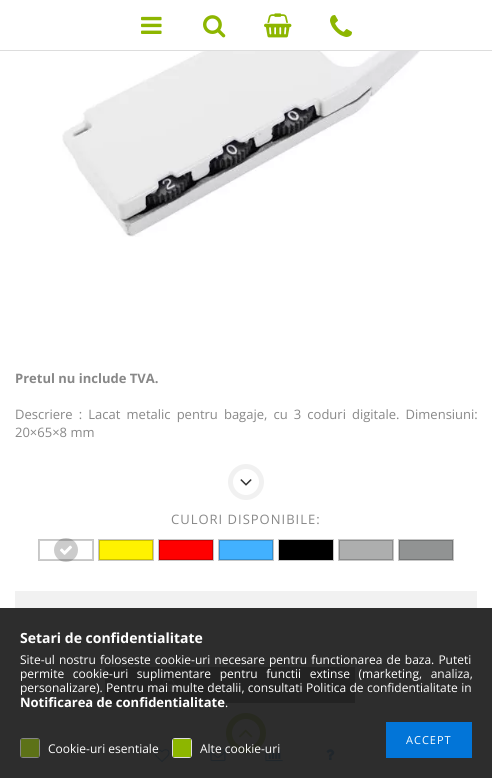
import math
import cairo

surface = cairo.ImageSurface(cairo.FORMAT_RGB24, 492, 778)
ctx = cairo.Context(surface)
options = cairo.FontOptions()
options.set_hint_metrics(cairo.HINT_METRICS_OFF)
options.set_hint_style(cairo.HINT_STYLE_NONE)
ctx.set_font_options(options)
ctx.set_miter_limit(4)


def set_color(code):
    ctx.set_source_rgb(*(v / 255 for v in bytes.fromhex(code[-6:])))


def draw_text(x, y, s, family, size, color, bold=False, italic=False):
    ctx.select_font_face(family, cairo.FONT_SLANT_ITALIC if italic else cairo.FONT_SLANT_NORMAL, cairo.FONT_WEIGHT_BOLD if bold else cairo.FONT_WEIGHT_NORMAL)
    ctx.set_font_size(size)
    set_color(color)
    ctx.move_to(x, y)
    ctx.show_text(s)


def draw_spaced(x, y, s, letter, word):
    ctx.move_to(x, y)
    for ch in s:
        ctx.show_text(ch)
        ctx.rel_move_to(letter + word * (ch == ' '), 0)


def fill_rect(x, y, w, h, color):
    set_color(color)
    ctx.rectangle(x, y, w, h)
    ctx.fill()


def rounded_rect(x, y, w, h, r):
    ctx.new_sub_path()
    for i, (u, v) in enumerate([(x + w - r, y + h - r), (x + r, y + h - r), (x + r, y + r), (x + w - r, y + r)]):
        ctx.arc(u, v, r, i * math.pi / 2, (i + 1) * math.pi / 2)
    ctx.close_path()


def draw_image(path, x, y, w, h):
    ctx.save()
    ctx.set_source_surface(cairo.ImageSurface.create_from_png(path), x, y)
    ctx.rectangle(x, y, w, h)
    ctx.fill()
    ctx.restore()


set_color("#ffffff")
ctx.paint()
fill_rect(0, 608, 492, 170, "#2d2d2d")
fill_rect(0, 50, 492, 1, "#dddddd")
draw_image("assets/img1.png", 141, 16, 21, 18)
draw_image("assets/img2.png", 203, 15, 23, 23)
draw_image("assets/img3.png", 264, 13, 28, 25)
draw_image("assets/img4.png", 330, 15, 22, 22)
draw_image("assets/img5.png", 62, 51, 367, 186)
draw_text(15, 383, "Pretul nu include TVA.", "Open Sans", 13, "#888888", bold=True)
ctx.select_font_face("Open Sans")
draw_spaced(15, 419, "Descriere : Lacat metalic pentru bagaje, cu 3 coduri digitale. Dimensiuni:", 0, 2.75)
draw_text(15, 437, "20×65×8 mm", "Open Sans", 13, "#888888")
ctx.new_path()
ctx.arc(246, 482, 15.5, 0, 2 * math.pi)
set_color("#f1f1f1")
ctx.set_line_width(5)
ctx.stroke()
draw_image("assets/img6.png", 240, 479, 12, 7)
set_color("#888888")
draw_spaced(171, 524, "CULORI DISPONIBILE:", 1, 0)
ctx.rectangle(38.5, 539.5, 55, 21)
set_color("#c7c7c7")
ctx.set_line_width(1)
ctx.stroke()
ctx.rectangle(39.5, 540.5, 53, 19)
set_color("#cccccc")
ctx.stroke()
ctx.set_source_rgba(0, 0, 0, 0.2)
ctx.arc(66, 550, 12, 0, 2 * math.pi)
ctx.fill()
draw_image("assets/img7.png", 60, 545, 12, 10)
fill_rect(100, 541, 52, 18, "#fff200")
ctx.rectangle(98.5, 539.5, 55, 21)
set_color("#c7c7c7")
ctx.stroke()
ctx.rectangle(99.5, 540.5, 53, 19)
set_color("#ccc200")
ctx.stroke()
fill_rect(160, 541, 52, 18, "#ff0000")
ctx.rectangle(158.5, 539.5, 55, 21)
set_color("#c7c7c7")
ctx.stroke()
ctx.rectangle(159.5, 540.5, 53, 19)
set_color("#cc0000")
ctx.stroke()
fill_rect(220, 541, 52, 18, "#42b1ff")
ctx.rectangle(218.5, 539.5, 55, 21)
set_color("#c7c7c7")
ctx.stroke()
ctx.rectangle(219.5, 540.5, 53, 19)
set_color("#358ecc")
ctx.stroke()
set_color("#000000")
ctx.rectangle(278.5, 539.5, 55, 21)
ctx.fill_preserve()
set_color("#c7c7c7")
ctx.stroke()
fill_rect(340, 541, 52, 18, "#adaeae")
ctx.rectangle(338.5, 539.5, 55, 21)
set_color("#c7c7c7")
ctx.stroke()
ctx.rectangle(339.5, 540.5, 53, 19)
set_color("#8a8b8b")
ctx.stroke()
fill_rect(400, 541, 52, 18, "#919393")
ctx.rectangle(398.5, 539.5, 55, 21)
set_color("#c7c7c7")
ctx.stroke()
ctx.rectangle(399.5, 540.5, 53, 19)
set_color("#747676")
ctx.stroke()
fill_rect(15, 591, 462, 17, "#f1f1f1")
draw_image("assets/img8.png", 79, 672, 11, 7)
draw_image("assets/img9.png", 79, 691, 11, 7)
fill_rect(105, 667, 250, 36, "#232323")
draw_image("assets/img10.png", 161, 678, 15, 14)
draw_image("assets/img11.png", 154, 749, 16, 13)
draw_image("assets/img12.png", 210, 749, 16, 13)
draw_image("assets/img13.png", 265, 748, 18, 14)
draw_image("assets/img14.png", 326, 749, 9, 11)
draw_text(20, 643, "Setari de confidentialitate", "Open Sans", 14, "#ffffff", bold=True)
ctx.select_font_face("Open Sans")
ctx.set_font_size(12)
draw_spaced(20, 664, "Site-ul nostru foloseste cookie-uri necesare pentru functionarea de baza. Puteti", 0, 1)
draw_spaced(20, 678, "permite cookie-uri suplimentare pentru functii extinse (marketing, analiza,", 0, 5.5)
draw_spaced(20, 692, "personalizare). Pentru mai multe detalii, consultati Politica de confidentialitate in", 0, 0.25)
draw_text(20, 707, "Notificarea de confidentialitate", "Open Sans", 13, "#ffffff", bold=True)
draw_text(225, 707, ".", "Open Sans", 12, "#ffffff")
fill_rect(386, 722, 86, 36, "#0275d8")
ctx.set_font_size(11)
set_color("#ffffff")
draw_spaced(406, 744, "ACCEPT", 1, 0)
rounded_rect(20.5, 738.5, 19, 19, 2.5)
set_color("#858585")
ctx.stroke()
fill_rect(21, 739, 18, 18, "#5d7217")
draw_text(48, 753, "Cookie-uri esentiale", "Open Sans", 12, "#ffffff")
rounded_rect(172.5, 738.5, 19, 19, 2.5)
set_color("#dddddd")
ctx.stroke()
fill_rect(173, 739, 18, 18, "#8db600")
ctx.arc(246, 733, 17, 0, 2 * math.pi)
set_color("#272920")
ctx.set_line_width(6)
ctx.stroke()
draw_text(200, 753, "Alte cookie-uri", "Open Sans", 12, "#ffffff")
draw_image("assets/img15.png", 239, 729, 14, 9)
surface.write_to_png("output.png")
